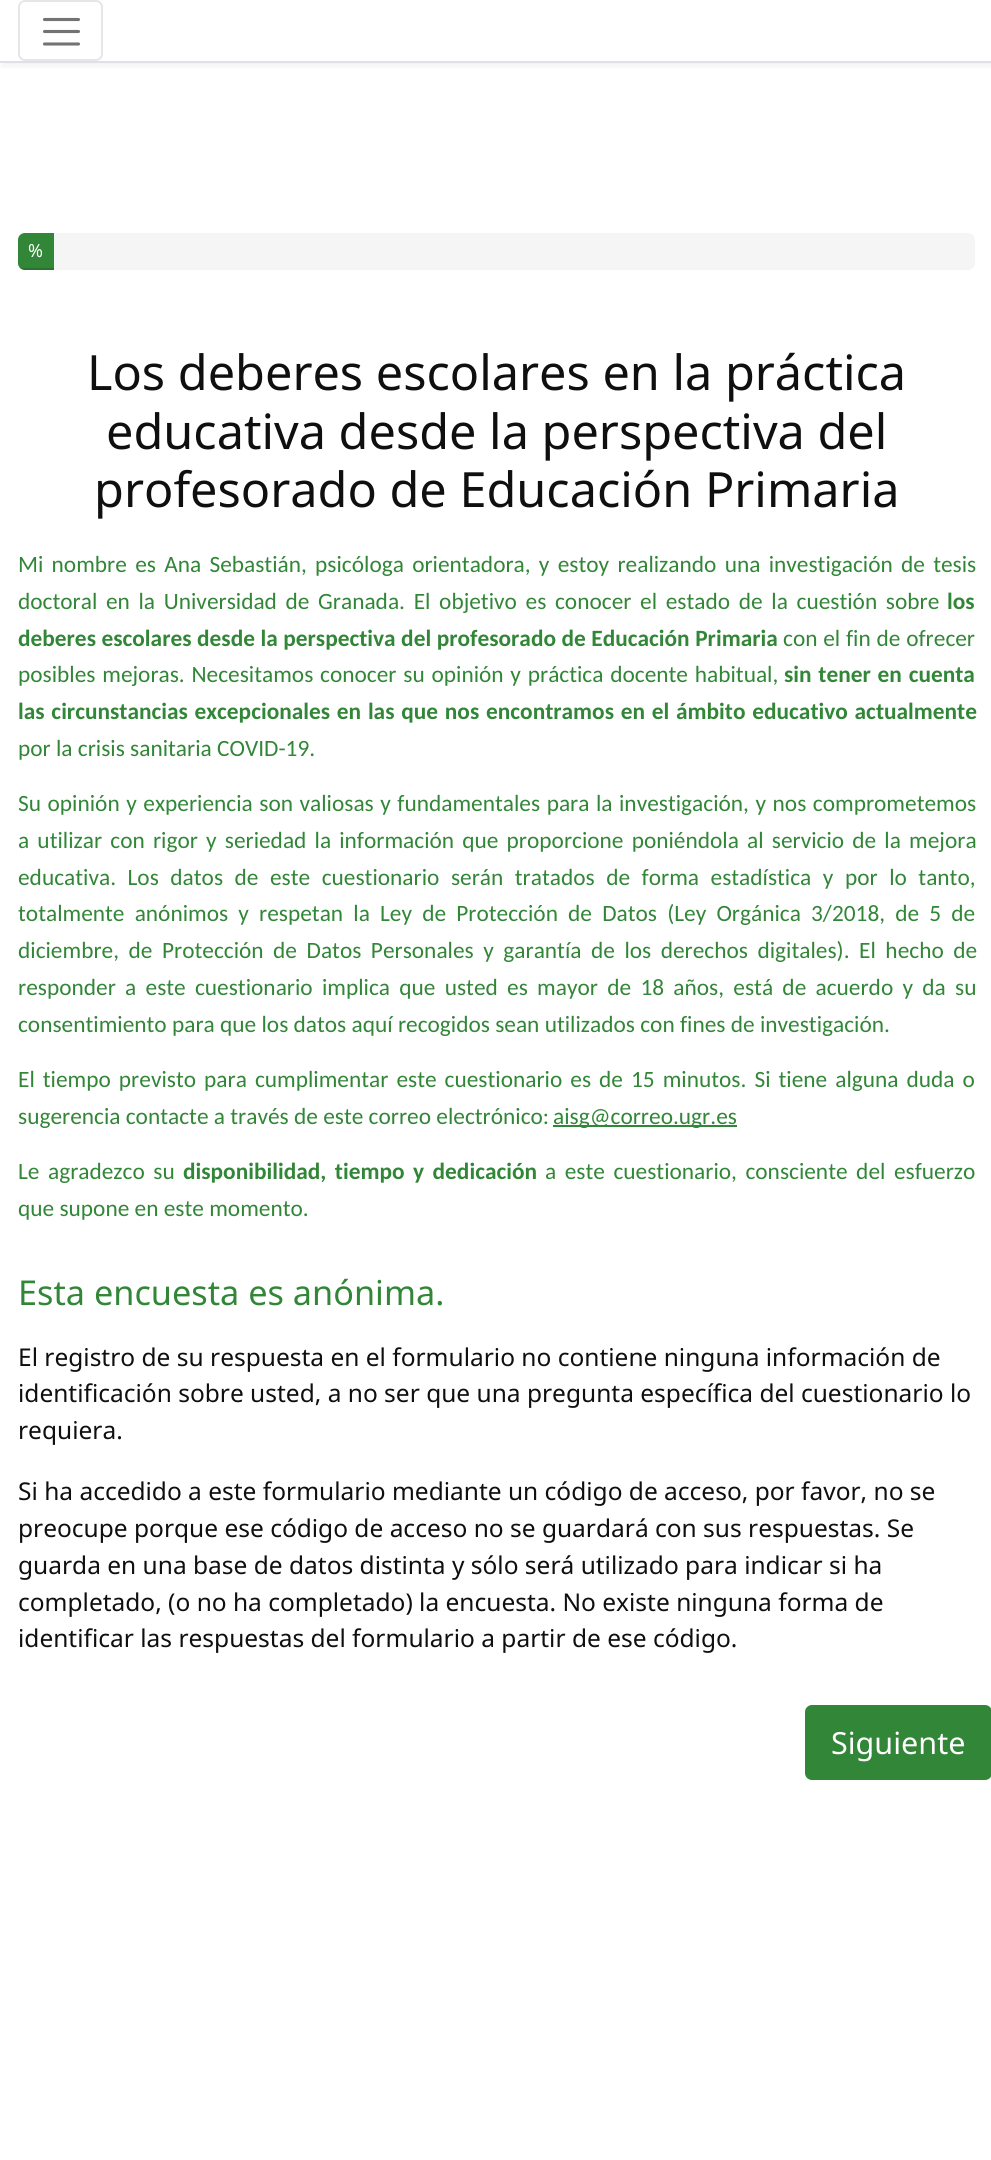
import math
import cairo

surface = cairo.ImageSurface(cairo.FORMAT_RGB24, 991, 2160)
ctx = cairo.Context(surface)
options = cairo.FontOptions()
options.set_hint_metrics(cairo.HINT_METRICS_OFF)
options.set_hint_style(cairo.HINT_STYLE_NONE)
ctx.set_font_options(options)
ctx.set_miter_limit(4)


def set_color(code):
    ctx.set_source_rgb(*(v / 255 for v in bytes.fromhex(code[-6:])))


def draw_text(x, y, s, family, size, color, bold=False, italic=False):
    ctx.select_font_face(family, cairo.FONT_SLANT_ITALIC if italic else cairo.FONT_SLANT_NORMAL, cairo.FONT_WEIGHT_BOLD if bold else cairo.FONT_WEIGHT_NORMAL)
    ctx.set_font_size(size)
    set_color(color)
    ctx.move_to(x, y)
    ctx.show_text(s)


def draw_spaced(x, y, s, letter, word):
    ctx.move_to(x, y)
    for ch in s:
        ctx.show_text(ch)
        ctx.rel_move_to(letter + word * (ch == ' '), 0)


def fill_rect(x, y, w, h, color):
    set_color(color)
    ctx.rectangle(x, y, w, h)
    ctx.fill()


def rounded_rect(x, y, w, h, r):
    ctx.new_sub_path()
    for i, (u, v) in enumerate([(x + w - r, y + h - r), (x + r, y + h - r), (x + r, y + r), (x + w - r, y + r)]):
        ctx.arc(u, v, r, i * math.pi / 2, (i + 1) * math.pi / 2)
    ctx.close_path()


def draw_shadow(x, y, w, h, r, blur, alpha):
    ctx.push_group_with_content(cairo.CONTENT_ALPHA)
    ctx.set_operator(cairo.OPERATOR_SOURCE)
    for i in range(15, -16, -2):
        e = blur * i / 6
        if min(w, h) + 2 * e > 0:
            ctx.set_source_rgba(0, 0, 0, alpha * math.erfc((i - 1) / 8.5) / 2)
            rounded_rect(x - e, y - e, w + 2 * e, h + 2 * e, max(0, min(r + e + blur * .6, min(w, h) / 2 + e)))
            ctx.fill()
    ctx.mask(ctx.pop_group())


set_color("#ffffff")
ctx.paint()
ctx.save()
ctx.rectangle(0, 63, 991, 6)
ctx.clip()
set_color("#84888b")
draw_shadow(2, 4, 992, 63, 0, 2.5, 0.1)
ctx.restore()
fill_rect(0, 61, 991, 2, "#dee2e6")
rounded_rect(19, 1, 83, 59, 6)
set_color("#e6e6e6")
ctx.stroke()
ctx.new_path()
ctx.move_to(44.5, 19.5)
ctx.line_to(78.5, 19.5)
ctx.move_to(44.5, 31.5)
ctx.line_to(78.5, 31.5)
ctx.move_to(44.5, 44)
ctx.line_to(78.5, 44)
set_color("#737373")
ctx.set_line_width(3.1)
ctx.set_line_cap(cairo.LINE_CAP_ROUND)
ctx.stroke()
set_color("#f5f5f5")
rounded_rect(18, 233, 957, 37, 7)
ctx.fill()
set_color("#328637")
ctx.new_path()
ctx.move_to(25, 233)
ctx.line_to(54, 233)
ctx.line_to(54, 270)
ctx.line_to(25, 270)
ctx.curve_to(21, 270, 18, 267, 18, 263)
ctx.line_to(18, 240)
ctx.curve_to(18, 236, 21, 233, 25, 233)
ctx.close_path()
ctx.fill()
ctx.save()
rounded_rect(18, 233, 957, 37, 7)
ctx.clip()
ctx.set_source_rgba(0, 0, 0, 0.15)
ctx.rectangle(18, 268, 36, 2)
ctx.fill()
ctx.restore()
draw_text(28, 257, "%", "Noto Sans", 18, "#ffffff")
draw_text(87, 390, "Los deberes escolares en la práctica", "Noto Sans", 48.6, "#100f0f")
draw_text(106, 449, "educativa desde la perspectiva del", "Noto Sans", 48.6, "#100f0f")
draw_text(94, 507, "profesorado de Educación Primaria", "Noto Sans", 48.6, "#100f0f")
ctx.select_font_face("Carlito")
ctx.set_font_size(23.35)
set_color("#328637")
draw_spaced(18, 572, "Mi nombre es Ana Sebastián, psicóloga orientadora, y estoy realizando una investigación de tesis", 0, 3)
draw_spaced(18, 609, "doctoral en la Universidad de Granada. El objetivo es conocer el estado de la cuestión sobre", 0, 3.4)
draw_text(947, 609, "los", "Carlito", 23.35, "#328637", bold=True)
draw_spaced(18, 646, "deberes escolares desde la perspectiva del profesorado de Educación Primaria", 0, 0.25)
ctx.select_font_face("Carlito")
draw_spaced(783, 646, "con el fin de ofrecer", 0, 0.5)
draw_spaced(18, 682, "posibles mejoras. Necesitamos conocer su opinión y práctica docente habitual,", 0, 1.5)
ctx.select_font_face("Carlito", cairo.FONT_SLANT_NORMAL, cairo.FONT_WEIGHT_BOLD)
draw_spaced(784, 682, "sin tener en cuenta", 0, 1.5)
draw_spaced(18, 719, "las circunstancias excepcionales en las que nos encontramos en el ámbito educativo actualmente", 0, 1.5)
draw_text(18, 756, "por la crisis sanitaria COVID-19.", "Carlito", 23.35, "#328637")
draw_spaced(18, 811, "Su opinión y experiencia son valiosas y fundamentales para la investigación, y nos comprometemos", 0, 1.25)
draw_spaced(18, 848, "a utilizar con rigor y seriedad la información que proporcione poniéndola al servicio de la mejora", 0, 2.9)
draw_spaced(18, 885, "educativa. Los datos de este cuestionario serán tratados de forma estadística y por lo tanto,", 0, 6.25)
draw_spaced(18, 921, "totalmente anónimos y respetan la Ley de Protección de Datos (Ley Orgánica 3/2018, de 5 de", 0, 4.9)
draw_spaced(18, 958, "diciembre, de Protección de Datos Personales y garantía de los derechos digitales). El hecho de", 0, 4.25)
draw_spaced(18, 995, "responder a este cuestionario implica que usted es mayor de 18 años, está de acuerdo y da su", 0, 4)
draw_text(18, 1032, "consentimiento para que los datos aquí recogidos sean utilizados con fines de investigación.", "Carlito", 23.35, "#328637")
draw_spaced(18, 1087, "El tiempo previsto para cumplimentar este cuestionario es de 15 minutos. Si tiene alguna duda o", 0, 2.75)
draw_text(18, 1124, "sugerencia contacte a través de este correo electrónico:", "Carlito", 23.35, "#328637")
fill_rect(553, 1125, 184, 2, "#328637")
draw_text(553, 1124, "aisg@correo.ugr.es", "Carlito", 23.35, "#328637")
draw_spaced(18, 1179, "Le agradezco su", 0, 3.25)
ctx.select_font_face("Carlito", cairo.FONT_SLANT_NORMAL, cairo.FONT_WEIGHT_BOLD)
draw_spaced(183, 1179, "disponibilidad, tiempo y dedicación", 0, 3.25)
ctx.select_font_face("Carlito")
draw_spaced(545, 1179, "a este cuestionario, consciente del esfuerzo", 0, 3.25)
draw_text(18, 1216, "que supone en este momento.", "Carlito", 23.35, "#328637")
draw_text(18, 1305, "Esta encuesta es anónima.", "Noto Sans", 34.25, "#328637")
draw_text(18, 1366, "El registro de su respuesta en el formulario no contiene ninguna información de", "Noto Sans", 24.5, "#100f0f")
draw_text(18, 1402, "identificación sobre usted, a no ser que una pregunta específica del cuestionario lo", "Noto Sans", 24.5, "#100f0f")
draw_text(18, 1439, "requiera.", "Noto Sans", 24.5, "#100f0f")
draw_text(18, 1500, "Si ha accedido a este formulario mediante un código de acceso, por favor, no se", "Noto Sans", 24.5, "#100f0f")
draw_text(18, 1537, "preocupe porque ese código de acceso no se guardará con sus respuestas. Se", "Noto Sans", 24.5, "#100f0f")
draw_text(18, 1574, "guarda en una base de datos distinta y sólo será utilizado para indicar si ha", "Noto Sans", 24.5, "#100f0f")
draw_text(18, 1611, "completado, (o no ha completado) la encuesta. No existe ninguna forma de", "Noto Sans", 24.5, "#100f0f")
draw_text(18, 1647, "identificar las respuestas del formulario a partir de ese código.", "Noto Sans", 24.5, "#100f0f")
set_color("#328637")
rounded_rect(806, 1706, 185, 73, 6)
ctx.fill_preserve()
ctx.set_line_width(2)
ctx.set_line_cap(cairo.LINE_CAP_BUTT)
ctx.stroke()
draw_text(831, 1754, "Siguiente", "Noto Sans", 30.5, "#ffffff")
surface.write_to_png("output.png")
